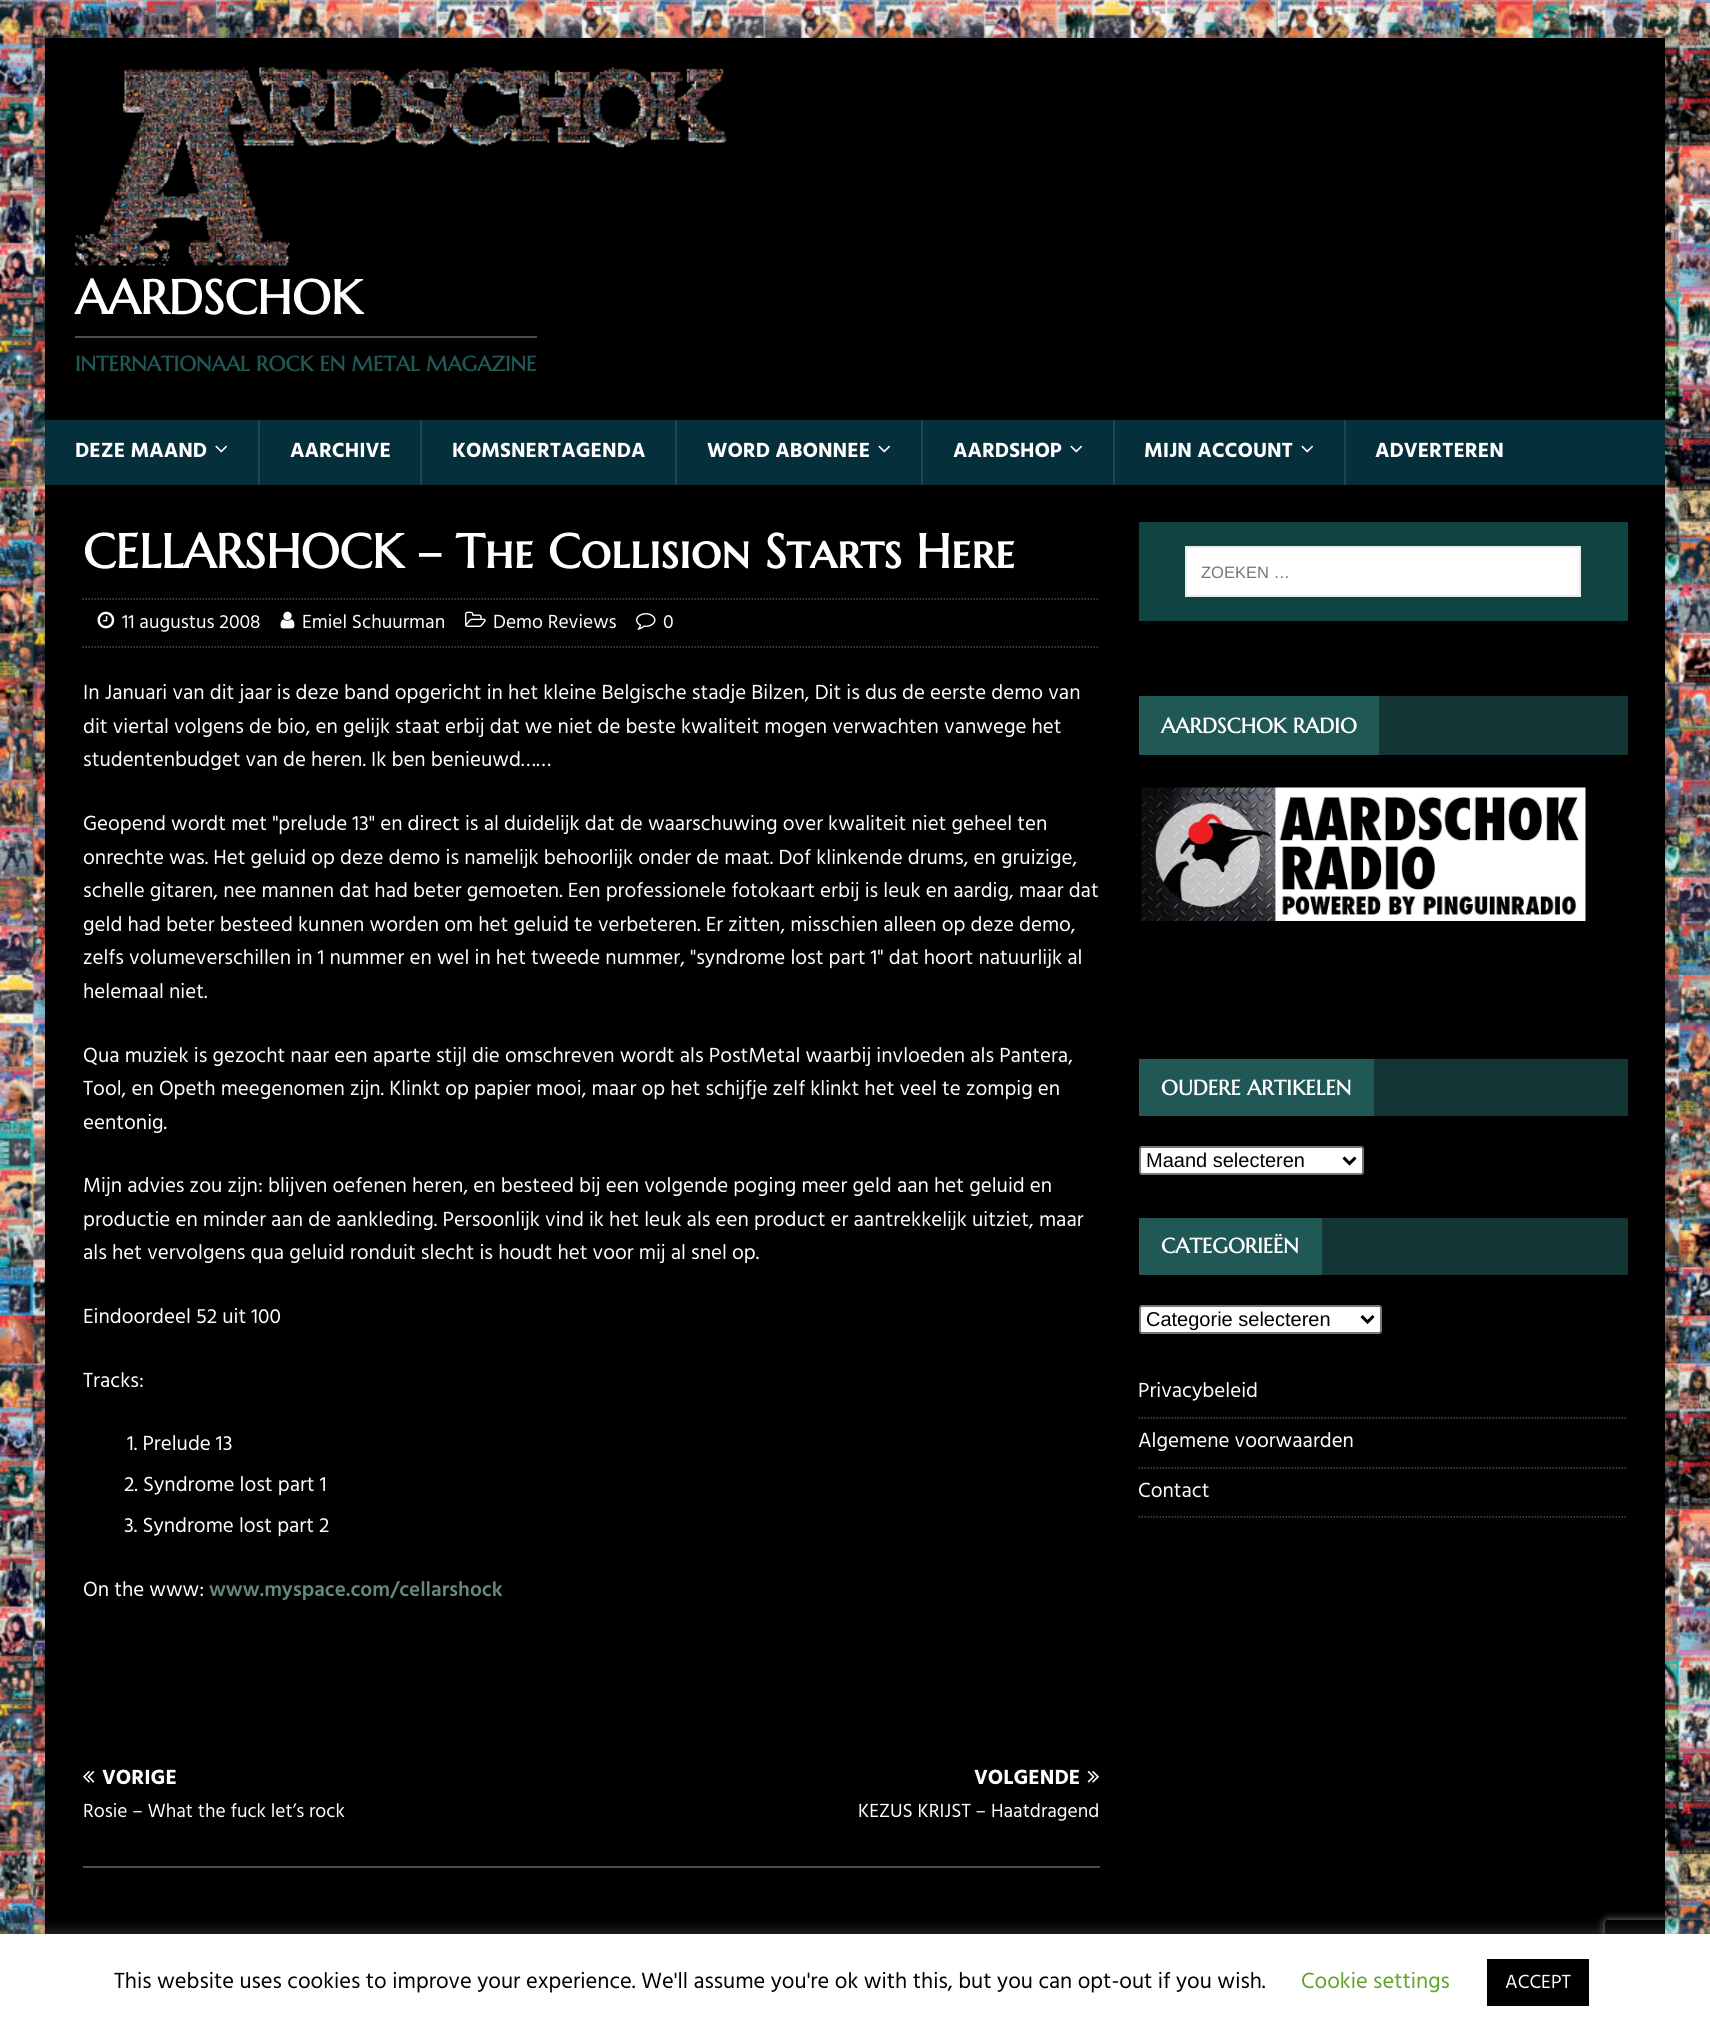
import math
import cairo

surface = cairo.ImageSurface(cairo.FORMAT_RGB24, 1710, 2031)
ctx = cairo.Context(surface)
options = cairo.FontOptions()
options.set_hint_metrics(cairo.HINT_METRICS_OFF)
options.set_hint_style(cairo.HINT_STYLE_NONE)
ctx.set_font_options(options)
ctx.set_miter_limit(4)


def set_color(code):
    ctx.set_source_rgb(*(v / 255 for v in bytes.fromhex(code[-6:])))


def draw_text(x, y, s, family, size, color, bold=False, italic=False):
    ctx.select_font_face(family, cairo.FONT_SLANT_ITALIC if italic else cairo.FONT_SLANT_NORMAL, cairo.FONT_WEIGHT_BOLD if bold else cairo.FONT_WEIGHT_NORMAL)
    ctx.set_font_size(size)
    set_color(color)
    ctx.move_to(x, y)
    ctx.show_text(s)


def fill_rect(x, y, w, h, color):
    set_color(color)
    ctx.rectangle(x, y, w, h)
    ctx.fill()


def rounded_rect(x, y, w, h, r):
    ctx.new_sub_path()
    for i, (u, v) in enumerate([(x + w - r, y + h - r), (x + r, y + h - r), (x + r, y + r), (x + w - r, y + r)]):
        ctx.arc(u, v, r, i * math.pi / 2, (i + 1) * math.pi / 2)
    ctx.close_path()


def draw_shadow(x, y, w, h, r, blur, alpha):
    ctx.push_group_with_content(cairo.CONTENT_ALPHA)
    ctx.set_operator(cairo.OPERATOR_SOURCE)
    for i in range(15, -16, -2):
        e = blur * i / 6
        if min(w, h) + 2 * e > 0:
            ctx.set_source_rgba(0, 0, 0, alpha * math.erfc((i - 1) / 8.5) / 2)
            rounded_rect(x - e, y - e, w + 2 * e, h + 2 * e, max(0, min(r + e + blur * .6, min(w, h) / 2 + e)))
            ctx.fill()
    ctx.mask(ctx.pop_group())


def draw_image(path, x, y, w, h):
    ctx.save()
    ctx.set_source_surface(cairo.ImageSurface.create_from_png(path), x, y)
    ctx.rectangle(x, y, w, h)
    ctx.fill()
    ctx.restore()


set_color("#ffffff")
ctx.paint()
draw_image("assets/img1.png", 0, 0, 1710, 1934)
set_color("#323232")
draw_shadow(45, 38, 1620, 1968, 0, 7.5, 0.17)
fill_rect(45, 38, 1620, 382, "#000000")
draw_image("assets/img2.png", 75, 67, 652, 199)
draw_text(75, 314, "AARDSCHOK", "Marcellus SC", 48, "#ffffff", bold=True)
fill_rect(75, 336, 462, 2, "#4d4d4d")
draw_text(75, 371, "INTERNATIONAAL ROCK EN METAL MAGAZINE", "Marcellus SC", 21, "#205855", bold=True)
fill_rect(45, 420, 1620, 65, "#052f3b")
draw_text(75, 457, "DEZE MAAND", "Hind", 21, "#ffffff", bold=True)
draw_image("assets/img3.png", 215, 445, 13, 8)
fill_rect(258, 420, 2, 65, "#1e444f")
draw_text(290, 457, "AARCHIVE", "Hind", 21, "#ffffff", bold=True)
fill_rect(420, 420, 2, 65, "#1e444f")
draw_text(452, 457, "KOMSNERTAGENDA", "Hind", 21, "#ffffff", bold=True)
fill_rect(675, 420, 2, 65, "#1e444f")
draw_text(707, 457, "WORD ABONNEE", "Hind", 21, "#ffffff", bold=True)
draw_image("assets/img3.png", 878, 445, 13, 8)
fill_rect(921, 420, 2, 65, "#1e444f")
draw_text(953, 457, "AARDSHOP", "Hind", 21, "#ffffff", bold=True)
draw_image("assets/img3.png", 1070, 445, 13, 8)
fill_rect(1113, 420, 2, 65, "#1e444f")
draw_text(1144, 457, "MIJN ACCOUNT", "Hind", 21, "#ffffff", bold=True)
draw_image("assets/img3.png", 1301, 445, 13, 8)
fill_rect(1344, 420, 2, 65, "#1e444f")
draw_text(1375, 457, "ADVERTEREN", "Hind", 21, "#ffffff", bold=True)
fill_rect(45, 485, 1620, 1449, "#000000")
draw_text(83, 568, "CELLARSHOCK – The Collision Starts Here", "Marcellus SC", 48, "#ffffff", bold=True)
ctx.new_path()
ctx.move_to(82.5, 599)
ctx.line_to(1099.5, 599)
set_color("#4d4d4d")
ctx.set_line_width(1.5)
ctx.set_dash([1.5, 1.5])
ctx.stroke()
ctx.new_path()
ctx.move_to(82.5, 647)
ctx.line_to(1099.5, 647)
ctx.stroke()
draw_image("assets/img4.png", 97, 611, 18, 18)
draw_text(122, 628, "11 augustus 2008", "Hind", 19.5, "#ffffff")
draw_image("assets/img5.png", 280, 611, 15, 18)
draw_text(302, 628, "Emiel Schuurman", "Hind", 19.5, "#ffffff")
draw_image("assets/img6.png", 465, 611, 21, 16)
draw_text(493, 628, "Demo Reviews", "Hind", 19.5, "#ffffff")
draw_image("assets/img7.png", 636, 613, 20, 17)
draw_text(663, 628, "0", "Hind", 19.5, "#ffffff")
draw_text(83, 699, "In Januari van dit jaar is deze band opgericht in het kleine Belgische stadje Bilzen, Dit is dus de eerste demo van", "Hind", 21, "#ffffff")
draw_text(83, 733, "dit viertal volgens de bio, en gelijk staat erbij dat we niet de beste kwaliteit mogen verwachten vanwege het", "Hind", 21, "#ffffff")
draw_text(83, 766, "studentenbudget van de heren. Ik ben benieuwd……", "Hind", 21, "#ffffff")
draw_text(83, 830, "Geopend wordt met \"prelude 13\" en direct is al duidelijk dat de waarschuwing over kwaliteit niet geheel ten", "Hind", 21, "#ffffff")
draw_text(83, 864, "onrechte was. Het geluid op deze demo is namelijk behoorlijk onder de maat. Dof klinkende drums, en gruizige,", "Hind", 21, "#ffffff")
draw_text(83, 897, "schelle gitaren, nee mannen dat had beter gemoeten. Een professionele fotokaart erbij is leuk en aardig, maar dat", "Hind", 21, "#ffffff")
draw_text(83, 931, "geld had beter besteed kunnen worden om het geluid te verbeteren. Er zitten, misschien alleen op deze demo,", "Hind", 21, "#ffffff")
draw_text(83, 964, "zelfs volumeverschillen in 1 nummer en wel in het tweede nummer, \"syndrome lost part 1\" dat hoort natuurlijk al", "Hind", 21, "#ffffff")
draw_text(83, 998, "helemaal niet.", "Hind", 21, "#ffffff")
draw_text(83, 1062, "Qua muziek is gezocht naar een aparte stijl die omschreven wordt als PostMetal waarbij invloeden als Pantera,", "Hind", 21, "#ffffff")
draw_text(83, 1095, "Tool, en Opeth meegenomen zijn. Klinkt op papier mooi, maar op het schijfje zelf klinkt het veel te zompig en", "Hind", 21, "#ffffff")
draw_text(83, 1129, "eentonig.", "Hind", 21, "#ffffff")
draw_text(83, 1192, "Mijn advies zou zijn: blijven oefenen heren, en besteed bij een volgende poging meer geld aan het geluid en", "Hind", 21, "#ffffff")
draw_text(83, 1226, "productie en minder aan de aankleding. Persoonlijk vind ik het leuk als een product er aantrekkelijk uitziet, maar", "Hind", 21, "#ffffff")
draw_text(83, 1259, "als het vervolgens qua geluid ronduit slecht is houdt het voor mij al snel op.", "Hind", 21, "#ffffff")
draw_text(83, 1323, "Eindoordeel 52 uit 100", "Hind", 21, "#ffffff")
draw_text(83, 1387, "Tracks:", "Hind", 21, "#ffffff")
draw_text(127, 1450, "1. Prelude 13", "Hind", 21, "#ffffff")
draw_text(124, 1491, "2. Syndrome lost part 1", "Hind", 21, "#ffffff")
draw_text(124, 1532, "3. Syndrome lost part 2", "Hind", 21, "#ffffff")
draw_text(83, 1596, "On the www:", "Hind", 21, "#ffffff")
draw_text(209, 1596, "www.myspace.com/cellarshock", "Hind SemiBold", 21, "#658a78")
fill_rect(83, 1866, 1017, 2, "#4d4d4d")
draw_image("assets/img8.png", 83, 1771, 12, 12)
draw_text(102, 1784, "VORIGE", "Hind", 21, "#ffffff", bold=True)
draw_text(83, 1817, "Rosie – What the fuck let’s rock", "Hind", 19.5, "#ffffff")
draw_text(974, 1784, "VOLGENDE", "Hind", 21, "#ffffff", bold=True)
draw_image("assets/img9.png", 1087, 1771, 12, 12)
draw_text(858, 1817, "KEZUS KRIJST – Haatdragend", "Hind", 19.5, "#ffffff")
fill_rect(1139, 522, 489, 99, "#104442")
set_color("#ffffff")
ctx.rectangle(1186, 547, 394, 49)
ctx.fill_preserve()
set_color("#ebebeb")
ctx.set_line_width(2)
ctx.set_dash([])
ctx.stroke()
draw_text(1201, 578, "ZOEKEN …", "Liberation Sans", 16.5, "#757575")
fill_rect(1379, 696, 249, 59, "#133533")
fill_rect(1139, 696, 240, 59, "#205855")
draw_text(1161, 733, "AARDSCHOK RADIO", "Marcellus SC", 21, "#ffffff", bold=True)
draw_image("assets/img10.png", 1141, 787, 445, 134)
fill_rect(1374, 1059, 254, 57, "#133533")
fill_rect(1139, 1059, 235, 57, "#205855")
draw_text(1161, 1095, "OUDERE ARTIKELEN", "Marcellus SC", 21, "#ffffff", bold=True)
rounded_rect(1140, 1147, 223, 27, 2)
ctx.fill_preserve()
set_color("#767676")
ctx.stroke()
ctx.new_path()
ctx.move_to(1343.5, 1157.5)
ctx.line_to(1349.5, 1163.5)
ctx.line_to(1355.5, 1157.5)
set_color("#000000")
ctx.set_line_width(3)
ctx.stroke()
draw_text(1146, 1167, "Maand selecteren", "Liberation Sans", 20, "#000000")
fill_rect(1322, 1218, 306, 57, "#133533")
fill_rect(1139, 1218, 183, 57, "#205855")
draw_text(1161, 1253, "CATEGORIEËN", "Marcellus SC", 21, "#ffffff", bold=True)
rounded_rect(1140, 1306, 241, 27, 2)
ctx.fill_preserve()
set_color("#767676")
ctx.set_line_width(2)
ctx.stroke()
ctx.new_path()
ctx.move_to(1361.5, 1316)
ctx.line_to(1367.5, 1322)
ctx.line_to(1373.5, 1316)
set_color("#000000")
ctx.set_line_width(3)
ctx.stroke()
draw_text(1146, 1326, "Categorie selecteren", "Liberation Sans", 20, "#000000")
ctx.new_path()
ctx.move_to(1138.5, 1418)
ctx.line_to(1627.5, 1418)
set_color("#4d4d4d")
ctx.set_line_width(1.5)
ctx.set_dash([1.5, 1.5])
ctx.stroke()
draw_text(1138, 1397, "Privacybeleid", "Hind", 21, "#ffffff")
ctx.new_path()
ctx.move_to(1138.5, 1468)
ctx.line_to(1627.5, 1468)
set_color("#4d4d4d")
ctx.stroke()
draw_text(1138, 1447, "Algemene voorwaarden", "Hind", 21, "#ffffff")
ctx.new_path()
ctx.move_to(1138.5, 1517)
ctx.line_to(1627.5, 1517)
set_color("#4d4d4d")
ctx.stroke()
draw_text(1138, 1497, "Contact", "Hind", 21, "#ffffff")
set_color("#acabab")
draw_shadow(0, 1932, 1710, 98, 0, 7.5, 0.3)
ctx.save()
ctx.set_fill_rule(cairo.FILL_RULE_EVEN_ODD)
ctx.new_path()
ctx.move_to(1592, 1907)
ctx.line_to(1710, 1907)
ctx.line_to(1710, 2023)
ctx.line_to(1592, 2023)
ctx.close_path()
ctx.move_to(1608, 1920)
ctx.line_to(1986, 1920)
ctx.curve_to(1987.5, 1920, 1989, 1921.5, 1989, 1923)
ctx.line_to(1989, 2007)
ctx.curve_to(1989, 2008.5, 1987.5, 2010, 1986, 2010)
ctx.line_to(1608, 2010)
ctx.curve_to(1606.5, 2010, 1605, 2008.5, 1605, 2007)
ctx.line_to(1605, 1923)
ctx.curve_to(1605, 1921.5, 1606.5, 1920, 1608, 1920)
ctx.close_path()
ctx.clip()
set_color("#808080")
draw_shadow(1605, 1920, 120, 90, 3, 4, 1)
ctx.restore()
fill_rect(0, 1934, 1710, 97, "#ffffff")
draw_text(114, 1988, "This website uses cookies to improve your experience. We'll assume you're ok with this, but you can opt-out if you wish.", "Hind", 22.5, "#000000")
draw_text(1301, 1988, "Cookie settings", "Hind", 22.5, "#62a329")
fill_rect(1487, 1959, 102, 47, "#000000")
draw_text(1505, 1988, "ACCEPT", "Hind", 19.5, "#ffffff")
surface.write_to_png("output.png")
